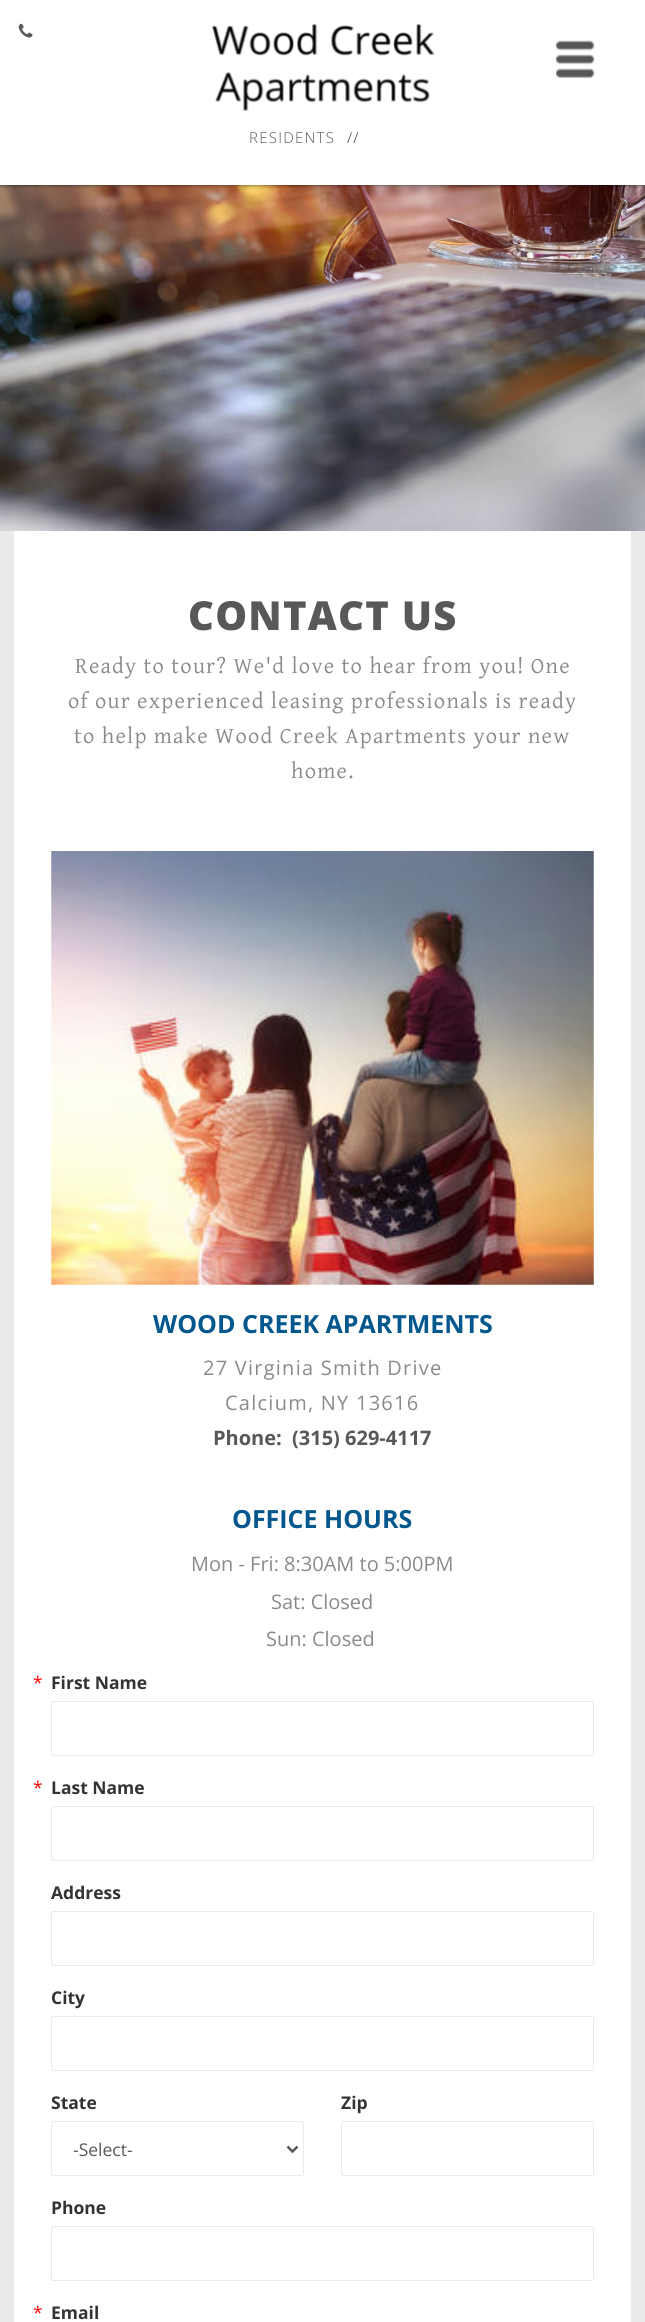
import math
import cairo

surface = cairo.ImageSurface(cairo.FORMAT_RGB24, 645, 2322)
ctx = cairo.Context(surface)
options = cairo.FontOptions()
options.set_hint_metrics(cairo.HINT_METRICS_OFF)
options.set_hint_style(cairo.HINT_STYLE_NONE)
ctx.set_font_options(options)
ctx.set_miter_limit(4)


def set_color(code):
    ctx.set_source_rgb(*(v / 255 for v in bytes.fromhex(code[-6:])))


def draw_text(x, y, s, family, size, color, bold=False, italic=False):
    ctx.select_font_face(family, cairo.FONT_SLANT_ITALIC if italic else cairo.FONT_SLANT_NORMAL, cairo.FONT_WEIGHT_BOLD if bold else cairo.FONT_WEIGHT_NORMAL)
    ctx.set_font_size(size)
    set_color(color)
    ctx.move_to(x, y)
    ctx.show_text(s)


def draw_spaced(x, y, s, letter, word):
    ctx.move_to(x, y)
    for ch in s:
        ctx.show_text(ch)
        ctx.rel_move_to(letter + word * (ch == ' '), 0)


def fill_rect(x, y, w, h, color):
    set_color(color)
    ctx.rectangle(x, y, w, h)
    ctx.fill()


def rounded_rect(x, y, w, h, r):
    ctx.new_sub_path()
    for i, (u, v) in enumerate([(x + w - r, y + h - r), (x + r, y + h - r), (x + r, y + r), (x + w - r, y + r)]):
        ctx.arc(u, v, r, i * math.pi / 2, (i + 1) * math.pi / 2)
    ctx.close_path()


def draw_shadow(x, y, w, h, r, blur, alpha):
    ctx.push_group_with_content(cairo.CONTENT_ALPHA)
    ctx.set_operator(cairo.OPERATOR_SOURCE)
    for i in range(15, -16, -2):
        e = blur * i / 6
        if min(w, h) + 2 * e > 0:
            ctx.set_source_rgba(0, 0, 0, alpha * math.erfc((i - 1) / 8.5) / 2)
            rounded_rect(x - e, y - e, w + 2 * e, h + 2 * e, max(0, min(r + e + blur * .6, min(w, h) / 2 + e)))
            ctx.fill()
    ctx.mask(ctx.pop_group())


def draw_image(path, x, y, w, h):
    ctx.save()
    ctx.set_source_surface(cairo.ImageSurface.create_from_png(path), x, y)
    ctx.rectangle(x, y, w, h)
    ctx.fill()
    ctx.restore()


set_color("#eaeaea")
ctx.paint()
draw_image("assets/img4.png", 0, 185, 645, 346)
set_color("#000000")
draw_shadow(1, -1, 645, 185, 0, 2.5, 1)
fill_rect(0, 0, 645, 185, "#ffffff")
draw_image("assets/img1.png", 18, 23, 15, 15)
draw_image("assets/img2.png", 212, 23, 223, 89)
draw_image("assets/img3.png", 556, 40, 39, 38)
ctx.select_font_face("Open Sans Light")
ctx.set_font_size(15)
set_color("#585858")
draw_spaced(249, 143, "RESIDENTS", 1.25, 0)
set_color("#333333")
draw_spaced(347, 143, "//", 1.25, 0)
fill_rect(14, 531, 617, 1791, "#ffffff")
ctx.select_font_face("Open Sans ExtraBold")
ctx.set_font_size(40)
set_color("#585858")
draw_spaced(188, 630, "CONTACT US", 1.25, 0)
ctx.select_font_face("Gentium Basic")
ctx.set_font_size(22.5)
set_color("#8b8a8b")
draw_spaced(75, 673, "Ready to tour? We'd love to hear from you! One", 1.25, 0)
draw_spaced(68, 708, "of our experienced leasing professionals is ready", 1.25, 0)
draw_spaced(74, 743, "to help make Wood Creek Apartments your new", 1.25, 0)
draw_spaced(291, 778, "home.", 1.25, 0)
draw_image("assets/img5.png", 51, 851, 543, 434)
draw_text(153, 1333, "WOOD CREEK APARTMENTS", "Open Sans", 25, "#02588d", bold=True)
ctx.select_font_face("Open Sans")
ctx.set_font_size(20)
set_color("#8b8a8b")
draw_spaced(203, 1375, "27 Virginia Smith Drive", 1.25, 0)
draw_spaced(225, 1410, "Calcium, NY 13616", 1.25, 0)
draw_text(213, 1445, "Phone:", "Open Sans", 20, "#585858", bold=True)
draw_text(292, 1445, "(315) 629-4117", "Open Sans", 20, "#585858", bold=True)
draw_text(232, 1528, "OFFICE HOURS", "Open Sans", 25, "#02588d", bold=True)
draw_text(191, 1571, "Mon - Fri: 8:30AM to 5:00PM", "Open Sans", 20, "#8b8a8b")
draw_text(271, 1609, "Sat: Closed", "Open Sans", 20, "#8b8a8b")
draw_text(266, 1646, "Sun: Closed", "Open Sans", 20, "#8b8a8b")
draw_text(33, 1689, "*", "Open Sans", 17.5, "#ff0000")
draw_text(51, 1689, "First Name", "Open Sans", 17.5, "#333333", bold=True)
rounded_rect(51.5, 1701.5, 542, 54, 2)
set_color("#ebe9e9")
ctx.set_line_width(1)
ctx.stroke()
draw_text(33, 1794, "*", "Open Sans", 17.5, "#ff0000")
draw_text(51, 1794, "Last Name", "Open Sans", 17.5, "#333333", bold=True)
rounded_rect(51.5, 1806.5, 542, 54, 2)
set_color("#ebe9e9")
ctx.stroke()
draw_text(51, 1899, "Address", "Open Sans", 17.5, "#333333", bold=True)
rounded_rect(51.5, 1911.5, 542, 54, 2)
set_color("#ebe9e9")
ctx.stroke()
draw_text(51, 2004, "City", "Open Sans", 17.5, "#333333", bold=True)
rounded_rect(51.5, 2016.5, 542, 54, 2)
set_color("#ebe9e9")
ctx.stroke()
draw_text(51, 2109, "State", "Open Sans", 17.5, "#333333", bold=True)
rounded_rect(51.5, 2121.5, 252, 54, 2)
set_color("#ebe9e9")
ctx.stroke()
ctx.new_path()
ctx.move_to(287.5, 2146.5)
ctx.line_to(292.5, 2151.5)
ctx.line_to(297.5, 2146.5)
set_color("#555555")
ctx.set_line_width(2.5)
ctx.stroke()
draw_text(73, 2156, "-Select-", "Open Sans", 17.5, "#585858")
draw_text(341, 2109, "Zip", "Open Sans", 17.5, "#333333", bold=True)
rounded_rect(341.5, 2121.5, 252, 54, 2)
set_color("#ebe9e9")
ctx.set_line_width(1)
ctx.stroke()
draw_text(51, 2214, "Phone", "Open Sans", 17.5, "#333333", bold=True)
rounded_rect(51.5, 2226.5, 542, 54, 2)
set_color("#ebe9e9")
ctx.stroke()
draw_text(33, 2319, "*", "Open Sans", 17.5, "#ff0000")
draw_text(51, 2319, "Email", "Open Sans", 17.5, "#333333", bold=True)
surface.write_to_png("output.png")
